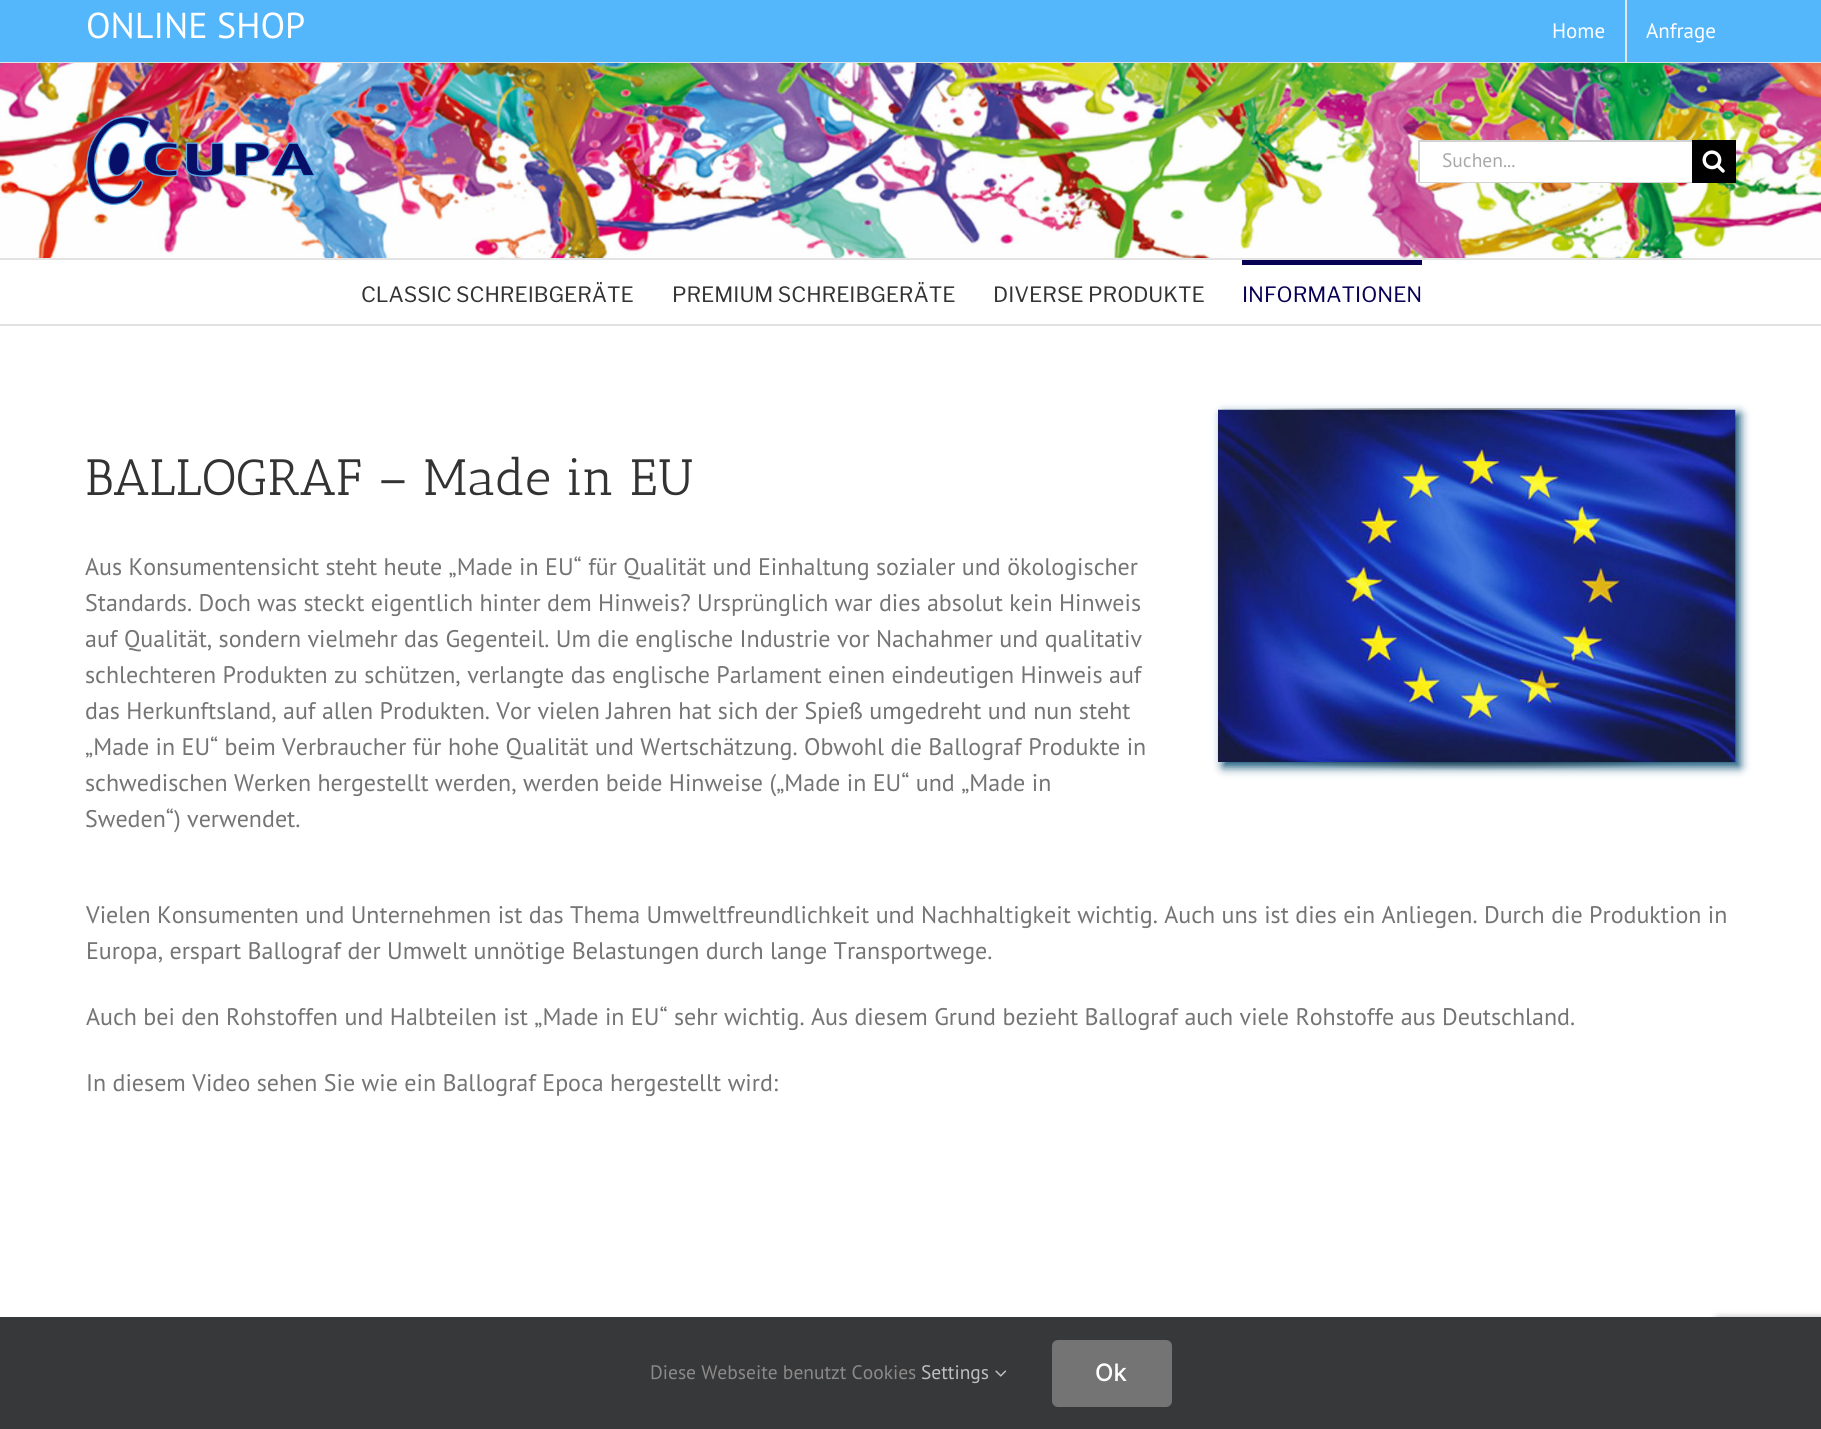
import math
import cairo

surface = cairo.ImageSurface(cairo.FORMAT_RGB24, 1821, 1429)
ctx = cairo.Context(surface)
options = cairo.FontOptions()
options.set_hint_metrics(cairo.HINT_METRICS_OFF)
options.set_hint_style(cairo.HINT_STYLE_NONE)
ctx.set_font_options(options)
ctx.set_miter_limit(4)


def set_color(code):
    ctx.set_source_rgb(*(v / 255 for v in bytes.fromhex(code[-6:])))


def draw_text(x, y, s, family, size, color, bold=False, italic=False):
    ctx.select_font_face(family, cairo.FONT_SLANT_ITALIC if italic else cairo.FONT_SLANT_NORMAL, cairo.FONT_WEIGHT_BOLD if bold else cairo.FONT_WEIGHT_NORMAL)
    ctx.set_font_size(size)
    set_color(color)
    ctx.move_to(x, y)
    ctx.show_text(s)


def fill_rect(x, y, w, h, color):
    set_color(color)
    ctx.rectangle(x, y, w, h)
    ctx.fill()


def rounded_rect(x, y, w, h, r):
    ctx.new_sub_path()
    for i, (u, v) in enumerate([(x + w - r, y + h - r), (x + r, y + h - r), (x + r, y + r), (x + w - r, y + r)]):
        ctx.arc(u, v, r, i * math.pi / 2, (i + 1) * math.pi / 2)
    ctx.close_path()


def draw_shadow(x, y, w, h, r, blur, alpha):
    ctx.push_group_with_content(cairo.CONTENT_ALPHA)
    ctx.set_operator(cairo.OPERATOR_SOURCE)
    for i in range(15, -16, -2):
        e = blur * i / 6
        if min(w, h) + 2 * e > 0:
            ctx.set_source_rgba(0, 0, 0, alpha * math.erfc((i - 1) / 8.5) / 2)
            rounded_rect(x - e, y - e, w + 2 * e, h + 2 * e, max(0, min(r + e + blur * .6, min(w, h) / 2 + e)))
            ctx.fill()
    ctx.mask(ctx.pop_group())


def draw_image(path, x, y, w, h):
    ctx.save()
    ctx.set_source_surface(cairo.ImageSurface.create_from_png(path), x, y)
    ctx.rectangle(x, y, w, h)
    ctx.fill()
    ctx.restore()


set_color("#ffffff")
ctx.paint()
fill_rect(0, 0, 1821, 62, "#54b6fb")
fill_rect(0, 62, 1821, 1, "#e2e2e2")
draw_text(86, 38, "ONLINE SHOP", "PT Sans", 36, "#ffffff")
draw_text(1552, 38, "Home", "PT Sans", 21, "#ffffff")
fill_rect(1625, 0, 2, 62, "#e5e5e5")
draw_text(1646, 38, "Anfrage", "PT Sans", 21, "#ffffff")
draw_image("assets/img1.png", 0, 63, 1821, 195)
fill_rect(0, 258, 1821, 2, "#e2e2e2")
draw_image("assets/img2.png", 86, 115, 229, 90)
fill_rect(1420, 142, 272, 40, "#ffffff")
fill_rect(1418, 140, 274, 2, "#d2d2d2")
fill_rect(1418, 182, 274, 1, "#d2d2d2")
fill_rect(1418, 140, 2, 43, "#d2d2d2")
draw_text(1442, 167, "Suchen...", "PT Sans", 19.5, "#aaa9a9")
fill_rect(1692, 140, 44, 43, "#000000")
draw_image("assets/img3.png", 1702, 150, 23, 23)
fill_rect(0, 324, 1821, 2, "#e2e2e2")
draw_text(361, 302, "CLASSIC SCHREIBGERÄTE", "Libre Franklin Thin", 21, "#333333")
draw_text(672, 302, "PREMIUM SCHREIBGERÄTE", "Libre Franklin Thin", 21, "#333333")
draw_text(993, 302, "DIVERSE PRODUKTE", "Libre Franklin Thin", 21, "#333333")
fill_rect(1242, 260, 180, 5, "#080054")
draw_text(1242, 302, "INFORMATIONEN", "Libre Franklin Thin", 21, "#080054")
draw_text(85, 495, "BALLOGRAF – Made in EU", "Antic Slab", 51, "#333333")
draw_text(85, 575, "Aus Konsumentensicht steht heute „Made in EU“ für Qualität und Einhaltung sozialer und ökologischer", "PT Sans", 24, "#747474")
draw_text(85, 611, "Standards. Doch was steckt eigentlich hinter dem Hinweis? Ursprünglich war dies absolut kein Hinweis", "PT Sans", 24, "#747474")
draw_text(85, 647, "auf Qualität, sondern vielmehr das Gegenteil. Um die englische Industrie vor Nachahmer und qualitativ", "PT Sans", 24, "#747474")
draw_text(85, 683, "schlechteren Produkten zu schützen, verlangte das englische Parlament einen eindeutigen Hinweis auf", "PT Sans", 24, "#747474")
draw_text(85, 719, "das Herkunftsland, auf allen Produkten. Vor vielen Jahren hat sich der Spieß umgedreht und nun steht", "PT Sans", 24, "#747474")
draw_text(85, 755, "„Made in EU“ beim Verbraucher für hohe Qualität und Wertschätzung. Obwohl die Ballograf Produkte in", "PT Sans", 24, "#747474")
draw_text(85, 791, "schwedischen Werken hergestellt werden, werden beide Hinweise („Made in EU“ und „Made in", "PT Sans", 24, "#747474")
draw_text(85, 827, "Sweden“) verwendet.", "PT Sans", 24, "#747474")
set_color("#105378")
draw_shadow(1223, 414, 517, 353, 0, 5, 1)
draw_image("assets/img4.png", 1218, 409, 518, 353)
gradient = cairo.RadialGradient(0, 0, 0, 0, 0, 1)
gradient.set_matrix(cairo.Matrix(1 / 366, 0, 0, 1 / 19, -1 * 1477 / 366, -1 * 404 / 19))
gradient.add_color_stop_rgba(0, 0, 0, 0, 0.5)
gradient.add_color_stop_rgba(0.65, 0, 0, 0, 0)
ctx.set_source(gradient)
ctx.rectangle(1266, 408, 422, 8)
ctx.fill()
gradient = cairo.RadialGradient(0, 0, 0, 0, 0, 1)
gradient.set_matrix(cairo.Matrix(1 / 366, 0, 0, 1 / 19, -1 * 1477 / 366, -1 * 758 / 19))
gradient.add_color_stop_rgba(0, 0, 0, 0, 0.5)
gradient.add_color_stop_rgba(0.65, 0, 0, 0, 0)
ctx.set_source(gradient)
ctx.rectangle(1266, 762, 422, 8)
ctx.fill()
draw_text(86, 923, "Vielen Konsumenten und Unternehmen ist das Thema Umweltfreundlichkeit und Nachhaltigkeit wichtig. Auch uns ist dies ein Anliegen. Durch die Produktion in", "PT Sans", 24, "#747474")
draw_text(86, 959, "Europa, erspart Ballograf der Umwelt unnötige Belastungen durch lange Transportwege.", "PT Sans", 24, "#747474")
draw_text(86, 1025, "Auch bei den Rohstoffen und Halbteilen ist „Made in EU“ sehr wichtig. Aus diesem Grund bezieht Ballograf auch viele Rohstoffe aus Deutschland.", "PT Sans", 24, "#747474")
draw_text(86, 1091, "In diesem Video sehen Sie wie ein Ballograf Epoca hergestellt wird:", "PT Sans", 24, "#747474")
set_color("#808080")
draw_shadow(1716, 1319, 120, 90, 3, 4, 1)
fill_rect(0, 1317, 1821, 112, "#363839")
draw_text(650, 1379, "Diese Webseite benutzt Cookies", "PT Sans", 19.5, "#8c8989")
draw_text(921, 1379, "Settings", "PT Sans", 19.5, "#bfbfbf")
draw_image("assets/img5.png", 995, 1370, 12, 7)
set_color("#747474")
rounded_rect(1052, 1340, 120, 67, 6)
ctx.fill()
draw_text(1095, 1381, "Ok", "Inter Medium", 24, "#ffffff")
surface.write_to_png("output.png")
